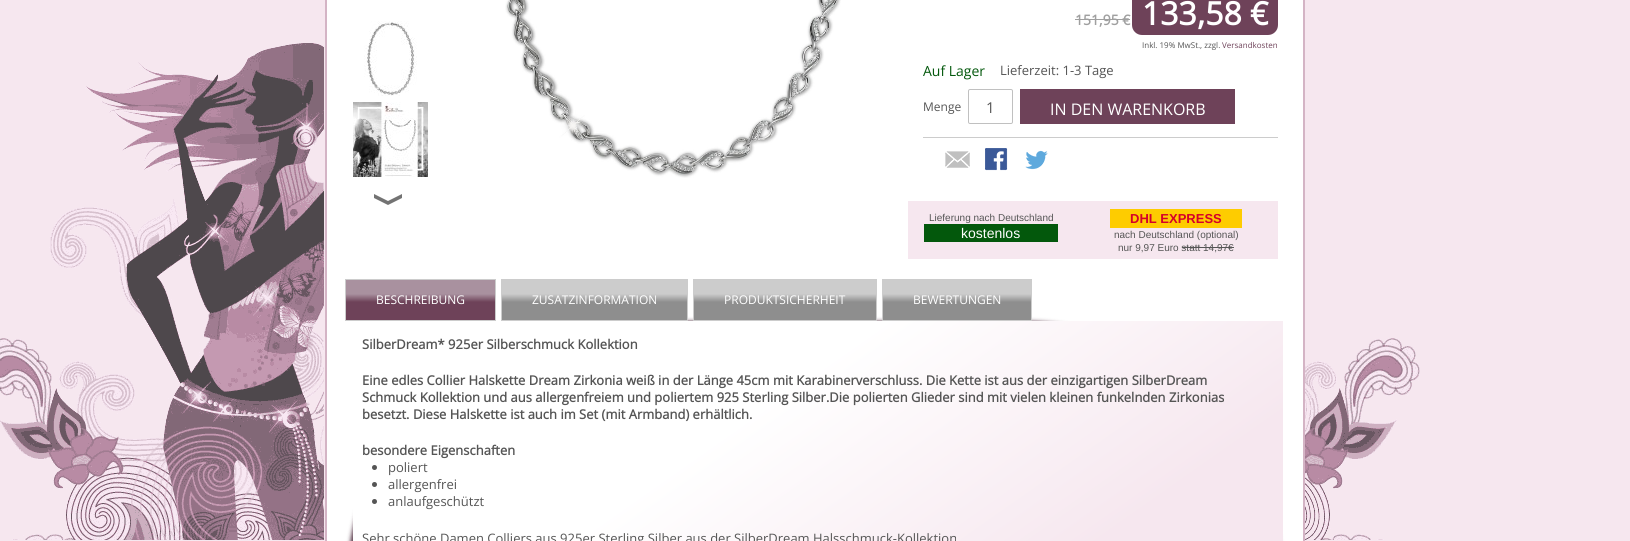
import math
import cairo

surface = cairo.ImageSurface(cairo.FORMAT_RGB24, 1630, 541)
ctx = cairo.Context(surface)
options = cairo.FontOptions()
options.set_hint_metrics(cairo.HINT_METRICS_OFF)
options.set_hint_style(cairo.HINT_STYLE_NONE)
ctx.set_font_options(options)
ctx.set_miter_limit(4)


def set_color(code):
    ctx.set_source_rgb(*(v / 255 for v in bytes.fromhex(code[-6:])))


def draw_text(x, y, s, family, size, color, bold=False, italic=False):
    ctx.select_font_face(family, cairo.FONT_SLANT_ITALIC if italic else cairo.FONT_SLANT_NORMAL, cairo.FONT_WEIGHT_BOLD if bold else cairo.FONT_WEIGHT_NORMAL)
    ctx.set_font_size(size)
    set_color(color)
    ctx.move_to(x, y)
    ctx.show_text(s)


def fill_rect(x, y, w, h, color):
    set_color(color)
    ctx.rectangle(x, y, w, h)
    ctx.fill()


def rounded_rect(x, y, w, h, r):
    ctx.new_sub_path()
    for i, (u, v) in enumerate([(x + w - r, y + h - r), (x + r, y + h - r), (x + r, y + r), (x + w - r, y + r)]):
        ctx.arc(u, v, r, i * math.pi / 2, (i + 1) * math.pi / 2)
    ctx.close_path()


def draw_shadow(x, y, w, h, r, blur, alpha):
    ctx.push_group_with_content(cairo.CONTENT_ALPHA)
    ctx.set_operator(cairo.OPERATOR_SOURCE)
    for i in range(15, -16, -2):
        e = blur * i / 6
        if min(w, h) + 2 * e > 0:
            ctx.set_source_rgba(0, 0, 0, alpha * math.erfc((i - 1) / 8.5) / 2)
            rounded_rect(x - e, y - e, w + 2 * e, h + 2 * e, max(0, min(r + e + blur * .6, min(w, h) / 2 + e)))
            ctx.fill()
    ctx.mask(ctx.pop_group())


def draw_image(path, x, y, w, h):
    ctx.save()
    ctx.set_source_surface(cairo.ImageSurface.create_from_png(path), x, y)
    ctx.rectangle(x, y, w, h)
    ctx.fill()
    ctx.restore()


set_color("#f6e7ef")
ctx.paint()
draw_image("assets/img1.png", 0, 43, 1420, 497)
fill_rect(327, 0, 976, 541, "#ffffff")
fill_rect(1303, 0, 2, 541, "#d4b4c5")
fill_rect(325, 0, 2, 541, "#d4b4c5")
draw_image("assets/img2.png", 364, 21, 53, 75)
draw_image("assets/img3.png", 353, 102, 75, 75)
draw_image("assets/img4.png", 374, 194, 28, 11)
draw_image("assets/img5.png", 505, 0, 336, 178)
draw_text(1075, 25, "151,95 €", "Open Sans", 14, "#a0a0a0", bold=True)
fill_rect(1075, 19, 55, 1, "#a0a0a0")
set_color("#6e4259")
rounded_rect(1132, -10, 146, 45, 10)
ctx.fill()
draw_text(1142, 25, "133,58 €", "Open Sans", 32, "#ffffff", bold=True)
draw_text(1142, 48, "Inkl. 19% MwSt., zzgl.", "Open Sans", 8, "#555555")
draw_text(1222, 48, "Versandkosten", "Open Sans", 8, "#6e4259")
draw_text(923, 76, "Auf Lager", "Open Sans", 14, "#03580c")
draw_text(1000, 75, "Lieferzeit: 1-3 Tage", "Open Sans", 13, "#555555")
fill_rect(923, 137, 355, 1, "#cccccc")
draw_text(923, 111, "Menge", "Open Sans", 12, "#555555")
rounded_rect(968.5, 89.5, 44, 34, 1.5)
set_color("#c0c0c0")
ctx.set_line_width(1)
ctx.stroke()
draw_text(986, 113, "1", "Open Sans", 15, "#555555")
fill_rect(1020, 89, 215, 35, "#6e4259")
draw_text(1050, 115, "IN DEN WARENKORB", "Open Sans", 16, "#ffffff")
draw_image("assets/img6.png", 945, 151, 25, 17)
draw_image("assets/img7.png", 985, 148, 23, 23)
draw_image("assets/img8.png", 1025, 150, 23, 20)
fill_rect(908, 201, 370, 58, "#f6e7ef")
draw_text(929, 221, "Lieferung nach Deutschland", "Liberation Sans", 10, "#555555")
fill_rect(924, 224, 134, 18, "#03580c")
draw_text(961, 238, "kostenlos", "Liberation Sans", 14, "#ffffff")
fill_rect(1110, 209, 132, 19, "#fecc00")
draw_text(1130, 223, "DHL EXPRESS", "Liberation Sans", 13, "#d50029", bold=True)
draw_text(1114, 238, "nach Deutschland (optional)", "Liberation Sans", 10, "#555555")
draw_text(1118, 251, "nur 9,97 Euro statt 14,97€", "Liberation Sans", 10, "#555555")
fill_rect(1182, 247, 52, 1, "#555555")
set_color("#553446")
draw_shadow(347, 321, 936, 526, 300, 2, 1)
ctx.rectangle(345.5, 279.5, 150, 41)
set_color("#cccccc")
ctx.stroke()
gradient = cairo.LinearGradient(421, 320, 421, 280)
gradient.add_color_stop_rgba(0.45, 0.431, 0.259, 0.349, 1)
gradient.add_color_stop_rgba(0.65, 0.663, 0.569, 0.624, 1)
ctx.set_source(gradient)
ctx.rectangle(346, 280, 149, 40)
ctx.fill()
draw_text(376, 304, "BESCHREIBUNG", "Open Sans", 12, "#ffffff")
gradient = cairo.LinearGradient(595, 320, 595, 280)
gradient.add_color_stop_rgba(0.45, 0.557, 0.557, 0.557, 1)
gradient.add_color_stop_rgba(0.65, 0.8, 0.8, 0.8, 1)
ctx.set_source(gradient)
ctx.rectangle(502, 280, 185, 40)
ctx.fill()
ctx.rectangle(501.5, 279.5, 186, 41)
set_color("#cccccc")
ctx.stroke()
draw_text(532, 304, "ZUSATZINFORMATION", "Open Sans", 12, "#ffffff")
gradient = cairo.LinearGradient(785, 320, 785, 280)
gradient.add_color_stop_rgba(0.45, 0.557, 0.557, 0.557, 1)
gradient.add_color_stop_rgba(0.65, 0.8, 0.8, 0.8, 1)
ctx.set_source(gradient)
ctx.rectangle(694, 280, 182, 40)
ctx.fill()
ctx.rectangle(693.5, 279.5, 183, 41)
set_color("#cccccc")
ctx.stroke()
draw_text(724, 304, "PRODUKTSICHERHEIT", "Open Sans", 12, "#ffffff")
gradient = cairo.LinearGradient(957, 320, 957, 280)
gradient.add_color_stop_rgba(0.45, 0.557, 0.557, 0.557, 1)
gradient.add_color_stop_rgba(0.65, 0.8, 0.8, 0.8, 1)
ctx.set_source(gradient)
ctx.rectangle(883, 280, 148, 40)
ctx.fill()
ctx.rectangle(882.5, 279.5, 149, 41)
set_color("#cccccc")
ctx.stroke()
draw_text(913, 304, "BEWERTUNGEN", "Open Sans", 12, "#ffffff")
gradient = cairo.LinearGradient(521, 199, 1109, 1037)
gradient.add_color_stop_rgba(0.3, 1, 1, 1, 1)
gradient.add_color_stop_rgba(0.6, 0.965, 0.906, 0.937, 1)
ctx.set_source(gradient)
ctx.rectangle(353, 321, 930, 220)
ctx.fill()
draw_text(362, 349, "SilberDream* 925er Silberschmuck Kollektion", "Open Sans", 13, "#555555", bold=True)
draw_text(362, 385, "Eine edles Collier Halskette Dream Zirkonia weiß in der Länge 45cm mit Karabinerverschluss. Die Kette ist aus der einzigartigen SilberDream", "Open Sans", 13, "#555555", bold=True)
draw_text(362, 402, "Schmuck Kollektion und aus allergenfreiem und poliertem 925 Sterling Silber.Die polierten Glieder sind mit vielen kleinen funkelnden Zirkonias", "Open Sans", 13, "#555555", bold=True)
draw_text(362, 419, "besetzt. Diese Halskette ist auch im Set (mit Armband) erhältlich.", "Open Sans", 13, "#555555", bold=True)
draw_text(362, 455, "besondere Eigenschaften", "Open Sans", 13, "#555555", bold=True)
ctx.new_path()
ctx.arc(374.5, 467.5, 2.5, 0, 2 * math.pi)
ctx.fill()
draw_text(388, 472, "poliert", "Open Sans", 13, "#555555")
ctx.new_path()
ctx.arc(374.5, 484.5, 2.5, 0, 2 * math.pi)
ctx.fill()
draw_text(388, 489, "allergenfrei", "Open Sans", 13, "#555555")
ctx.new_path()
ctx.arc(374.5, 501.5, 2.5, 0, 2 * math.pi)
ctx.fill()
draw_text(388, 506, "anlaufgeschützt", "Open Sans", 13, "#555555")
draw_text(362, 543, "Sehr schöne Damen Colliers aus 925er Sterling Silber aus der SilberDream Halsschmuck-Kollektion", "Open Sans", 13, "#555555")
surface.write_to_png("output.png")
